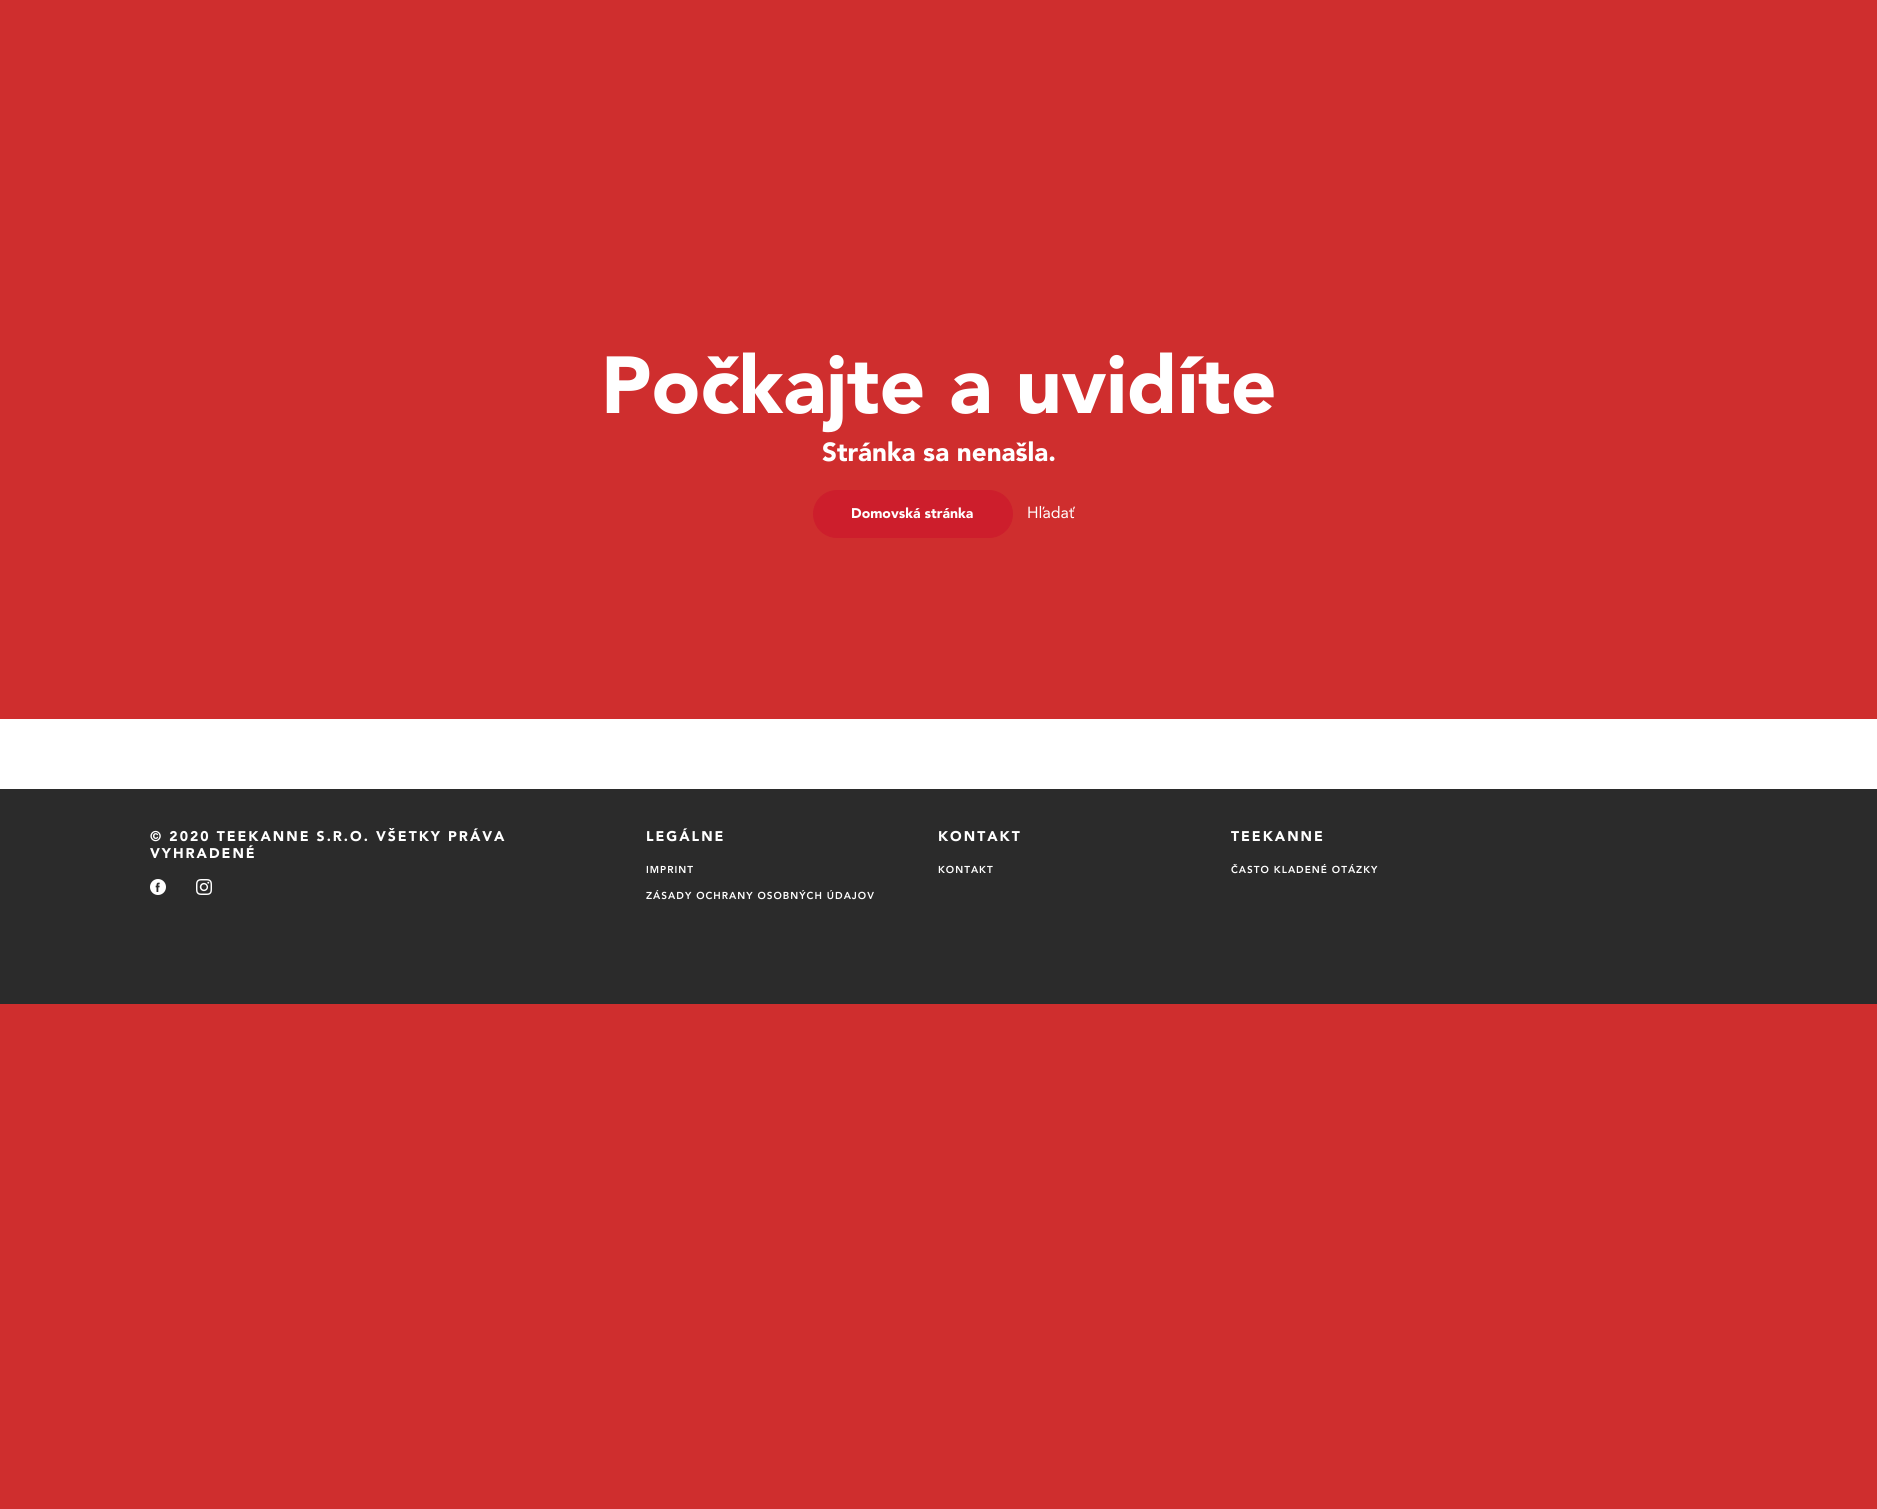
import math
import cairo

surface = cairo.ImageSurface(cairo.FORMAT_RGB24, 1877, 1509)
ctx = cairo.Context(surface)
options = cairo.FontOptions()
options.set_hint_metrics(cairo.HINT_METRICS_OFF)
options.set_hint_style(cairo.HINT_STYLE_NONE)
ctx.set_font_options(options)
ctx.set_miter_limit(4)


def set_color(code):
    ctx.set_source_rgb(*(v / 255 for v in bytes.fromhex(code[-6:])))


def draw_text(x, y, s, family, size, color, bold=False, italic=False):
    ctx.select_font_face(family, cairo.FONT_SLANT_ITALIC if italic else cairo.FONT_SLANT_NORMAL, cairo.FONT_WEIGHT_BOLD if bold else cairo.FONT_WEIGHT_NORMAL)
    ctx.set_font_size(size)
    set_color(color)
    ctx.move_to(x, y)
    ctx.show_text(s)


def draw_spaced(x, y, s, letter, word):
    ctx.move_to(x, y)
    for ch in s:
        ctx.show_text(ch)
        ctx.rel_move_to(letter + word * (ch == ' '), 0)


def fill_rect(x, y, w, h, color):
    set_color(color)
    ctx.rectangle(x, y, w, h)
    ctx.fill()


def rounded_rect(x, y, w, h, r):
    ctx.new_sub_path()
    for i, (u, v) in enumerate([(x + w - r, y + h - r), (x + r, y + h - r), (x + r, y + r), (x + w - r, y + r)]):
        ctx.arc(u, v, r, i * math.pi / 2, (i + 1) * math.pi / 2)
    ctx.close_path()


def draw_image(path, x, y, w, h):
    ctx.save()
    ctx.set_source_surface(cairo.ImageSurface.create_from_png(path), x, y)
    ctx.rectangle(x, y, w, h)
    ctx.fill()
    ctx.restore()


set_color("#cf2e2e")
ctx.paint()
draw_text(601, 413, "Počkajte a uvidíte", "Avenir Black", 80, "#ffffff")
draw_text(822, 461, "Stránka sa nenašla.", "Avenir Black", 26, "#ffffff")
set_color("#cd1e2c")
rounded_rect(813.5, 490.5, 199, 47, 23.5)
ctx.fill_preserve()
ctx.set_line_width(1)
ctx.stroke()
draw_text(851, 518, "Domovská stránka", "Avenir Black", 14, "#ffffff")
draw_text(1027, 518, "Hľadať", "Avenir", 16, "#ffffff")
fill_rect(0, 719, 1877, 70, "#ffffff")
fill_rect(0, 789, 1877, 215, "#2b2b2b")
ctx.select_font_face("Avenir Black")
ctx.set_font_size(14)
set_color("#ffffff")
draw_spaced(150, 841, "© 2020 TEEKANNE S.R.O. VŠETKY PRÁVA", 2, 0)
draw_spaced(150, 858, "VYHRADENÉ", 2, 0)
draw_image("assets/img1.png", 150, 879, 16, 16)
draw_image("assets/img2.png", 196, 879, 16, 16)
draw_spaced(646, 841, "LEGÁLNE", 2, 0)
ctx.select_font_face("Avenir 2 Black")
ctx.set_font_size(10)
draw_spaced(646, 873, "IMPRINT", 1, 0)
draw_spaced(646, 899, "ZÁSADY OCHRANY OSOBNÝCH ÚDAJOV", 1, 0)
ctx.select_font_face("Avenir Black")
ctx.set_font_size(14)
draw_spaced(938, 841, "KONTAKT", 2, 0)
ctx.select_font_face("Avenir 2 Black")
ctx.set_font_size(10)
draw_spaced(938, 873, "KONTAKT", 1, 0)
ctx.select_font_face("Avenir Black")
ctx.set_font_size(14)
draw_spaced(1231, 841, "TEEKANNE", 2, 0)
ctx.select_font_face("Avenir 2 Black")
ctx.set_font_size(10)
draw_spaced(1231, 873, "ČASTO KLADENÉ OTÁZKY", 1, 0)
surface.write_to_png("output.png")
